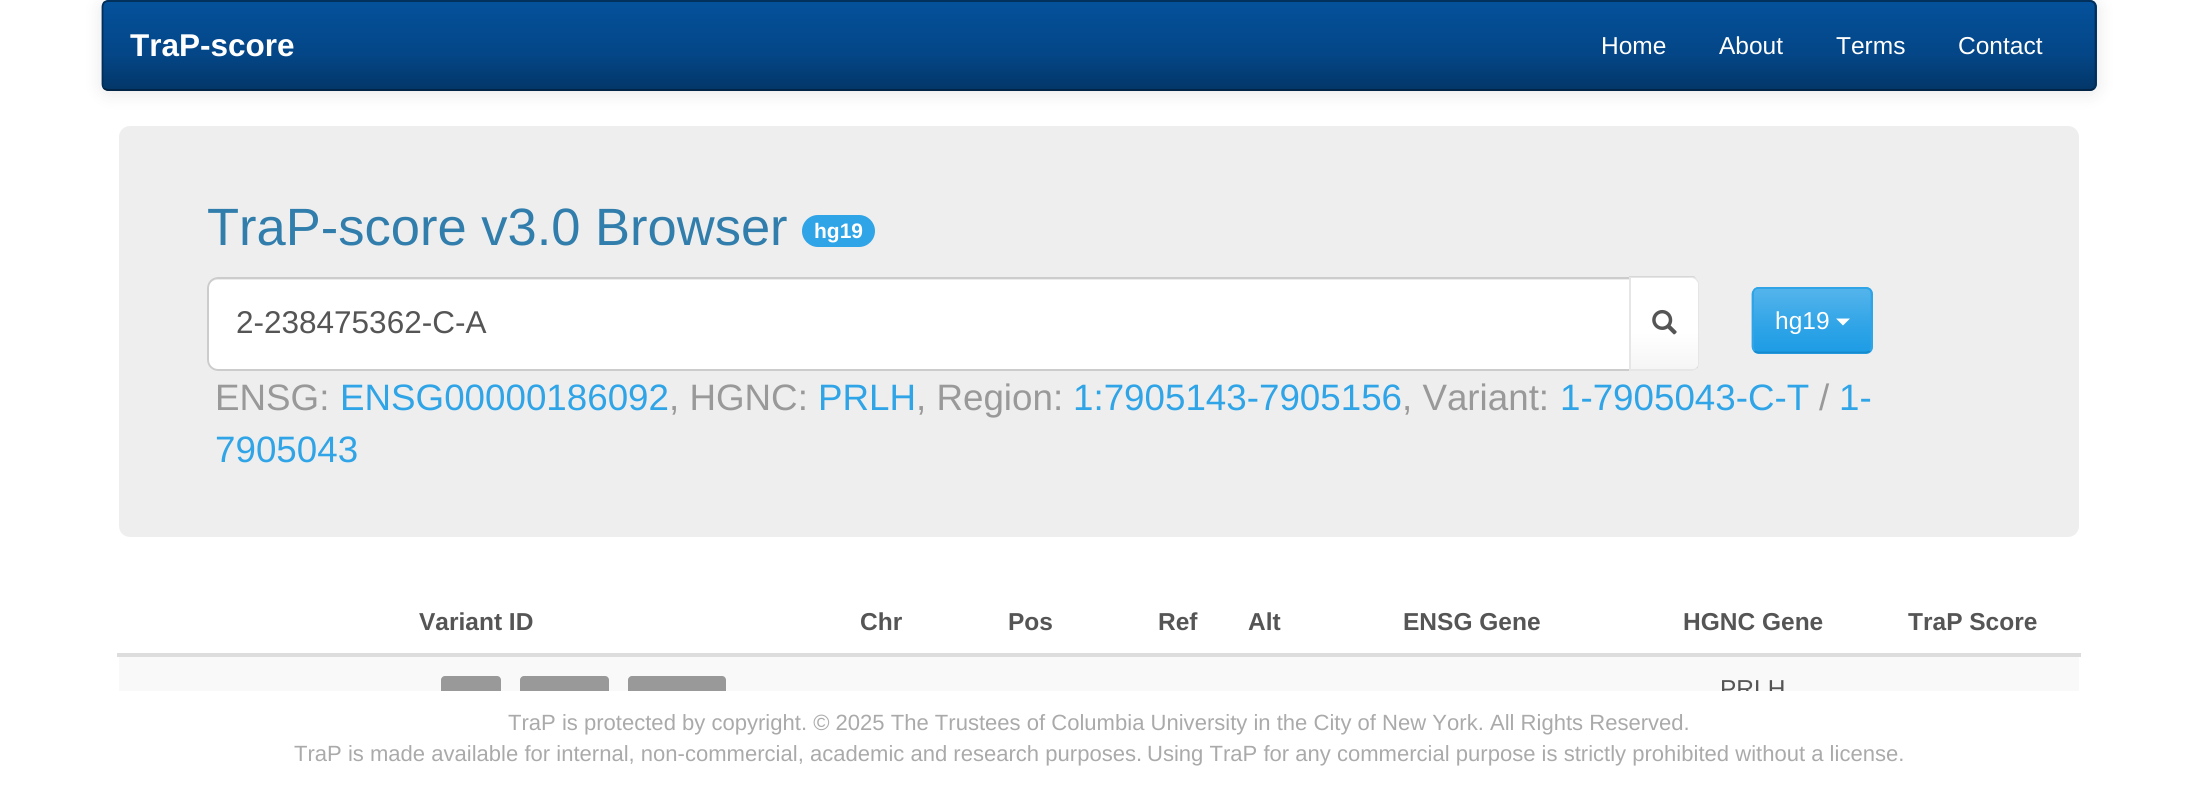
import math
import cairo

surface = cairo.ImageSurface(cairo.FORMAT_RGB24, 2198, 806)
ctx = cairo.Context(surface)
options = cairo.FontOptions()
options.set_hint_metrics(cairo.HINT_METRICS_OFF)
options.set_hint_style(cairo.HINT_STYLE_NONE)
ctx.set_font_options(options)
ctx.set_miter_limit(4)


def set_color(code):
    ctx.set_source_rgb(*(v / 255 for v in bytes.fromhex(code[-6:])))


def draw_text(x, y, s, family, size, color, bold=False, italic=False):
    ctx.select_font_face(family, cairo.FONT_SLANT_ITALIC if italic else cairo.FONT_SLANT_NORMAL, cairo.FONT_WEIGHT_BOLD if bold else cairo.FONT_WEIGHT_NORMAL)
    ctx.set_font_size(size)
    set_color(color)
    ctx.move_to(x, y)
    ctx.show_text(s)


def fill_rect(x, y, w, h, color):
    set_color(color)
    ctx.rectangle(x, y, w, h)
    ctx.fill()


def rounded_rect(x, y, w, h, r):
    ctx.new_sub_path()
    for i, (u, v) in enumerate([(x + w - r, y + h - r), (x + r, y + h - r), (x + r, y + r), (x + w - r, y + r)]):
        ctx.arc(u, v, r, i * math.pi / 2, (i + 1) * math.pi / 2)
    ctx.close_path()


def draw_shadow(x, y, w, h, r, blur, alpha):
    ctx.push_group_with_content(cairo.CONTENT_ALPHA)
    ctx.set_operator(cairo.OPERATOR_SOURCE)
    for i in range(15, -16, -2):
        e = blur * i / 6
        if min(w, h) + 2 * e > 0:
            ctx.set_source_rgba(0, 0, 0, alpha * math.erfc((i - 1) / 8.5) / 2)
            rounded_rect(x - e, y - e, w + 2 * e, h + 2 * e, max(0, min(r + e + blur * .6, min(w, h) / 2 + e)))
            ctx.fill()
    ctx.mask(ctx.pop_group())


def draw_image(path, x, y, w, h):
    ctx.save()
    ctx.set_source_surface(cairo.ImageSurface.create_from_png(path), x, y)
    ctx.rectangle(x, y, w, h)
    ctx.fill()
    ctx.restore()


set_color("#ffffff")
ctx.paint()
set_color("#000000")
draw_shadow(102, 2, 1995, 91, 7, 9, 0.1)
set_color("#033c73")
rounded_rect(102, 0, 1995, 91, 7)
ctx.fill()
gradient = cairo.LinearGradient(1099, 1.7, 1099, 89)
gradient.add_color_stop_rgba(0, 0.016, 0.318, 0.608, 1)
gradient.add_color_stop_rgba(0.6, 0.016, 0.275, 0.529, 1)
gradient.add_color_stop_rgba(1, 0.012, 0.216, 0.412, 1)
ctx.set_source(gradient)
ctx.rectangle(103, 2, 1992, 87)
ctx.fill()
ctx.new_path()
ctx.move_to(2094, 88.5)
ctx.curve_to(2092.5, 89.5, 2091, 90, 2089.5, 90)
ctx.line_to(108.5, 90)
ctx.curve_to(107, 90, 105.5, 89.5, 104, 88.5)
set_color("#022241")
ctx.set_line_width(1.8)
ctx.stroke()
ctx.new_path()
ctx.move_to(104, 88.5)
ctx.curve_to(103, 87, 102.5, 85.5, 102.5, 84)
ctx.line_to(102.5, 7)
ctx.curve_to(102.5, 5.5, 103, 4, 104, 2.5)
ctx.curve_to(105.5, 1.5, 107, 1, 108.5, 1)
ctx.line_to(2089.5, 1)
ctx.curve_to(2091, 1, 2092.5, 1.5, 2094, 2.5)
ctx.curve_to(2095, 4, 2095.5, 5.5, 2095.5, 7)
ctx.line_to(2095.5, 84)
ctx.curve_to(2095.5, 85.5, 2095, 87, 2094, 88.5)
set_color("#022f5a")
ctx.stroke()
draw_text(130, 56, "TraP-score", "Liberation Sans", 31.5, "#ffffff", bold=True)
draw_text(1601, 54, "Home", "Liberation Sans", 24.5, "#ffffff")
draw_text(1719, 54, "About", "Liberation Sans", 24.5, "#ffffff")
draw_text(1836, 54, "Terms", "Liberation Sans", 24.5, "#ffffff")
draw_text(1958, 54, "Contact", "Liberation Sans", 24.5, "#ffffff")
set_color("#eeeeee")
rounded_rect(119, 126, 1960, 411, 11)
ctx.fill()
draw_text(207, 245, "TraP-score v3.0 Browser", "Liberation Sans", 52.5, "#317eac")
set_color("#2fa4e7")
rounded_rect(802, 215, 73, 32, 16)
ctx.fill()
draw_text(814, 238, "hg19", "Liberation Sans", 21, "#ffffff", bold=True)
ctx.new_path()
ctx.move_to(218, 277)
ctx.line_to(1631, 277)
ctx.line_to(1631, 371)
ctx.line_to(218, 371)
ctx.curve_to(212, 371, 207, 366, 207, 360)
ctx.line_to(207, 288)
ctx.curve_to(207, 282, 212, 277, 218, 277)
ctx.close_path()
ctx.fill()
set_color("#ececec")
ctx.new_path()
ctx.move_to(217, 280)
ctx.line_to(1629, 280)
ctx.line_to(1629, 278)
ctx.line_to(217, 278)
ctx.curve_to(212, 278, 208, 282, 208, 287)
ctx.line_to(208, 289)
ctx.curve_to(208, 284, 212, 280, 217, 280)
ctx.close_path()
ctx.fill()
ctx.new_path()
ctx.move_to(218, 278)
ctx.line_to(1630, 278)
ctx.line_to(1630, 370)
ctx.line_to(218, 370)
ctx.curve_to(212.5, 370, 208, 365.5, 208, 360)
ctx.line_to(208, 288)
ctx.curve_to(208, 282.5, 212.5, 278, 218, 278)
ctx.close_path()
set_color("#cccccc")
ctx.set_line_width(2)
ctx.stroke()
draw_text(236, 333, "2-238475362-C-A", "Liberation Sans", 31.5, "#555555")
set_color("#ffffff")
ctx.new_path()
ctx.move_to(1629, 277)
ctx.line_to(1692, 277)
ctx.curve_to(1696, 277, 1699, 280, 1699, 284)
ctx.line_to(1699, 364)
ctx.curve_to(1699, 368, 1696, 371, 1692, 371)
ctx.line_to(1629, 371)
ctx.close_path()
ctx.fill()
ctx.save()
ctx.new_path()
ctx.move_to(1629, 277)
ctx.line_to(1692, 277)
ctx.curve_to(1696, 277, 1699, 280, 1699, 284)
ctx.line_to(1699, 364)
ctx.curve_to(1699, 368, 1696, 371, 1692, 371)
ctx.line_to(1629, 371)
ctx.close_path()
ctx.clip()
gradient = cairo.LinearGradient(1664, 278, 1664, 369)
gradient.add_color_stop_rgba(0, 1, 1, 1, 1)
gradient.add_color_stop_rgba(0.6, 1, 1, 1, 1)
gradient.add_color_stop_rgba(1, 0.961, 0.961, 0.961, 1)
ctx.set_source(gradient)
ctx.rectangle(1631, 278, 67, 91)
ctx.fill()
ctx.restore()
ctx.set_source_rgba(0, 0, 0, 0.1)
ctx.new_path()
ctx.move_to(1631, 278)
ctx.line_to(1629, 276)
ctx.line_to(1694, 276)
ctx.line_to(1697, 279)
ctx.line_to(1696, 280)
ctx.curve_to(1695, 279, 1693, 278, 1692, 278)
ctx.close_path()
ctx.fill()
ctx.new_path()
ctx.move_to(1697, 279)
ctx.curve_to(1698, 280, 1699, 282, 1699, 284)
ctx.line_to(1699, 364)
ctx.curve_to(1699, 366, 1698, 368, 1697, 369)
ctx.line_to(1696, 368)
ctx.curve_to(1697, 367, 1698, 366, 1698, 365)
ctx.line_to(1698, 283)
ctx.line_to(1696, 280)
ctx.close_path()
ctx.fill()
set_color("#e6e6e6")
ctx.new_path()
ctx.move_to(1629, 371)
ctx.line_to(1692, 371)
ctx.curve_to(1694, 371, 1696, 370, 1697, 369)
ctx.line_to(1696, 368)
ctx.curve_to(1695, 369, 1693, 369, 1692, 369)
ctx.line_to(1631, 369)
ctx.close_path()
ctx.fill()
ctx.set_source_rgba(0, 0, 0, 0.1)
ctx.new_path()
ctx.move_to(1629, 371)
ctx.line_to(1631, 369)
ctx.line_to(1631, 278)
ctx.line_to(1629, 276)
ctx.close_path()
ctx.fill()
draw_image("assets/img1.png", 1652, 309, 25, 26)
set_color("#2fa4e7")
rounded_rect(1752, 287, 121, 67, 7)
ctx.fill()
gradient = cairo.LinearGradient(1812, 289, 1812, 352)
gradient.add_color_stop_rgba(0, 0.329, 0.706, 0.922, 1)
gradient.add_color_stop_rgba(0.6, 0.184, 0.643, 0.906, 1)
gradient.add_color_stop_rgba(1, 0.114, 0.612, 0.898, 1)
ctx.set_source(gradient)
ctx.rectangle(1754, 289, 117, 63)
ctx.fill()
ctx.new_path()
ctx.move_to(1870, 351)
ctx.curve_to(1868.5, 352, 1867, 352.5, 1865.5, 352.5)
ctx.line_to(1759, 352.5)
ctx.curve_to(1757, 352.5, 1755.5, 352, 1754.5, 351)
set_color("#178acc")
ctx.set_line_width(1.8)
ctx.stroke()
ctx.new_path()
ctx.move_to(1754.5, 351)
ctx.curve_to(1753.5, 349.5, 1752.5, 348, 1752.5, 346.5)
ctx.line_to(1752.5, 294)
ctx.curve_to(1752.5, 292.5, 1753.5, 291, 1754.5, 289.5)
ctx.curve_to(1755.5, 288.5, 1757, 288, 1759, 288)
ctx.line_to(1865.5, 288)
ctx.curve_to(1867, 288, 1868.5, 288.5, 1870, 289.5)
ctx.curve_to(1871, 291, 1871.5, 292.5, 1871.5, 294)
ctx.line_to(1871.5, 346.5)
ctx.curve_to(1871.5, 348, 1871, 349.5, 1870, 351)
set_color("#2fa4e7")
ctx.stroke()
draw_text(1775, 329, "hg19", "Liberation Sans", 24.5, "#ffffff")
ctx.new_path()
ctx.move_to(1836, 318.5)
ctx.line_to(1850, 318.5)
ctx.line_to(1843, 325.5)
ctx.close_path()
ctx.fill()
draw_text(215, 410, "ENSG:", "Liberation Sans", 36.75, "#999999")
draw_text(340, 410, "ENSG00000186092", "Liberation Sans", 36.75, "#2fa4e7")
draw_text(669, 410, ", HGNC:", "Liberation Sans", 36.75, "#999999")
draw_text(818, 410, "PRLH", "Liberation Sans", 36.75, "#2fa4e7")
draw_text(916, 410, ", Region:", "Liberation Sans", 36.75, "#999999")
draw_text(1073, 410, "1:7905143-7905156", "Liberation Sans", 36.75, "#2fa4e7")
draw_text(1402, 410, ", Variant:", "Liberation Sans", 36.75, "#999999")
draw_text(1560, 410, "1-7905043-C-T", "Liberation Sans", 36.75, "#2fa4e7")
draw_text(1819, 410, "/", "Liberation Sans", 36.75, "#999999")
draw_text(1839, 410, "1-", "Liberation Sans", 36.75, "#2fa4e7")
draw_text(215, 462, "7905043", "Liberation Sans", 36.75, "#2fa4e7")
draw_text(419, 630, "Variant ID", "Liberation Sans", 24.5, "#555555", bold=True)
draw_text(860, 630, "Chr", "Liberation Sans", 24.5, "#555555", bold=True)
draw_text(1008, 630, "Pos", "Liberation Sans", 24.5, "#555555", bold=True)
draw_text(1158, 630, "Ref", "Liberation Sans", 24.5, "#555555", bold=True)
draw_text(1248, 630, "Alt", "Liberation Sans", 24.5, "#555555", bold=True)
draw_text(1403, 630, "ENSG Gene", "Liberation Sans", 24.5, "#555555", bold=True)
draw_text(1683, 630, "HGNC Gene", "Liberation Sans", 24.5, "#555555", bold=True)
fill_rect(117, 653, 1964, 4, "#dddddd")
draw_text(1908, 630, "TraP Score", "Liberation Sans", 24.5, "#555555", bold=True)
fill_rect(119, 657, 1960, 34, "#f9f9f9")
set_color("#999999")
rounded_rect(441, 676, 60, 29, 4)
ctx.fill()
rounded_rect(520, 676, 89, 29, 4)
ctx.fill()
rounded_rect(628, 676, 98, 29, 4)
ctx.fill()
draw_text(1720, 697, "PRLH", "Liberation Sans", 24.5, "#555555")
fill_rect(441, 691, 1343, 14, "#ffffff")
draw_text(508, 730, "TraP is protected by copyright. © 2025 The Trustees of Columbia University in the City of New York. All Rights Reserved.", "Liberation Sans", 22.05, "#aaaaaa")
draw_text(294, 761, "TraP is made available for internal, non-commercial, academic and research purposes.", "Liberation Sans", 22.05, "#aaaaaa")
draw_text(1147, 761, "Using TraP for any commercial purpose is strictly prohibited without a license.", "Liberation Sans", 22.05, "#aaaaaa")
surface.write_to_png("output.png")
